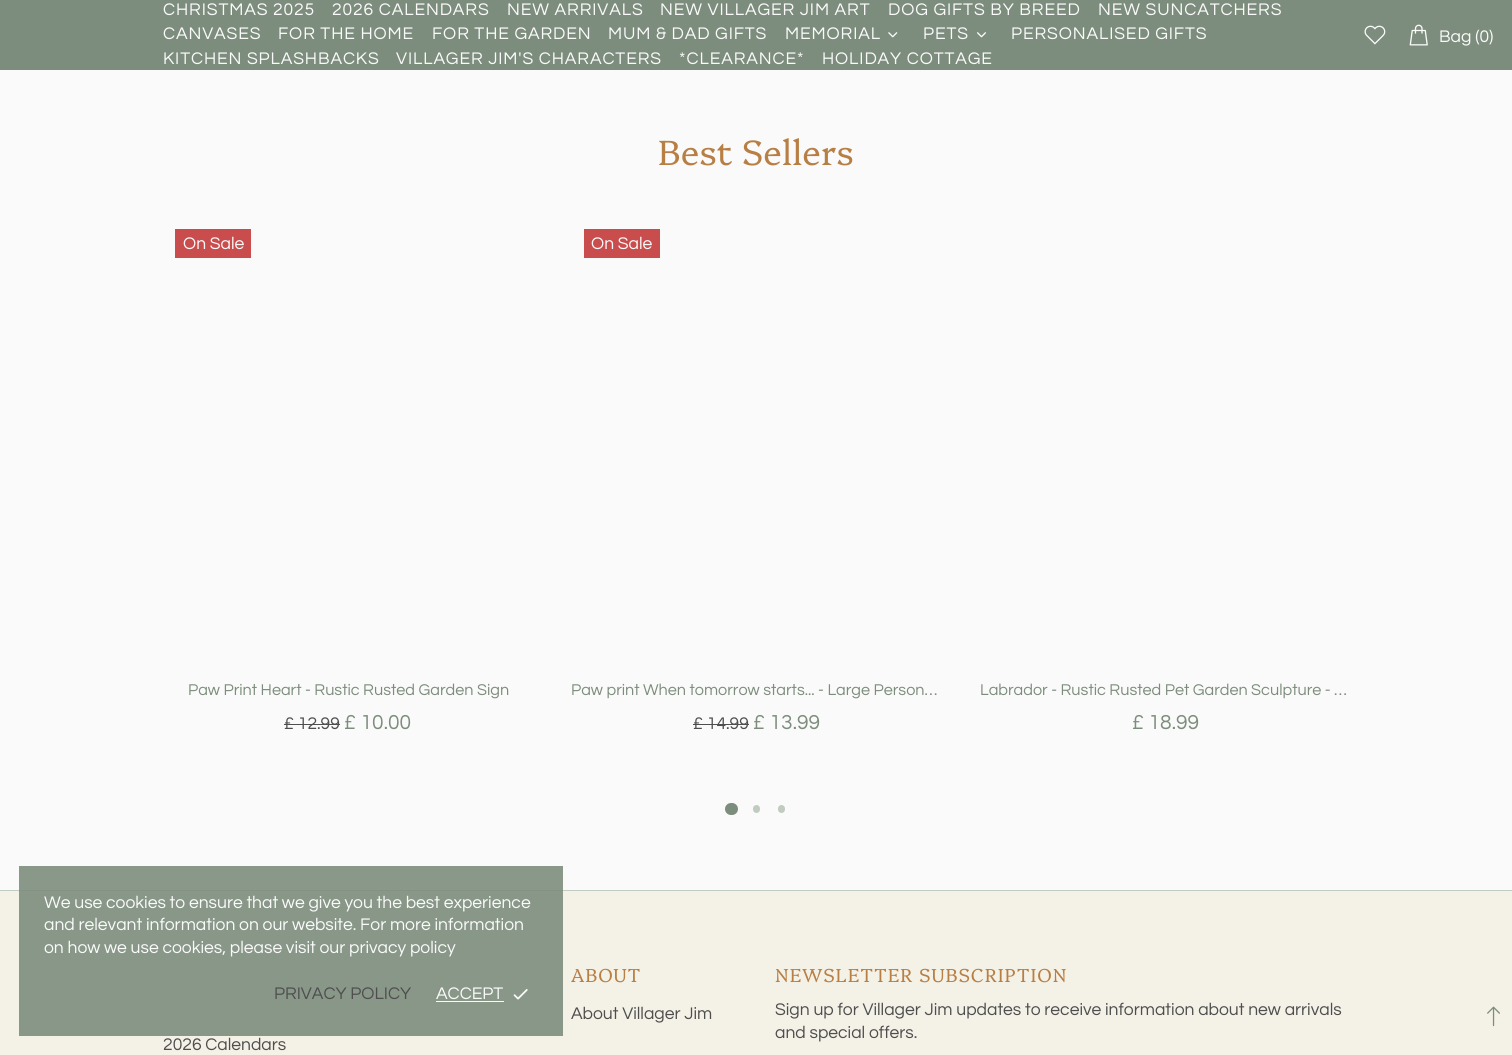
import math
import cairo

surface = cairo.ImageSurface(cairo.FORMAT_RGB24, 1512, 1055)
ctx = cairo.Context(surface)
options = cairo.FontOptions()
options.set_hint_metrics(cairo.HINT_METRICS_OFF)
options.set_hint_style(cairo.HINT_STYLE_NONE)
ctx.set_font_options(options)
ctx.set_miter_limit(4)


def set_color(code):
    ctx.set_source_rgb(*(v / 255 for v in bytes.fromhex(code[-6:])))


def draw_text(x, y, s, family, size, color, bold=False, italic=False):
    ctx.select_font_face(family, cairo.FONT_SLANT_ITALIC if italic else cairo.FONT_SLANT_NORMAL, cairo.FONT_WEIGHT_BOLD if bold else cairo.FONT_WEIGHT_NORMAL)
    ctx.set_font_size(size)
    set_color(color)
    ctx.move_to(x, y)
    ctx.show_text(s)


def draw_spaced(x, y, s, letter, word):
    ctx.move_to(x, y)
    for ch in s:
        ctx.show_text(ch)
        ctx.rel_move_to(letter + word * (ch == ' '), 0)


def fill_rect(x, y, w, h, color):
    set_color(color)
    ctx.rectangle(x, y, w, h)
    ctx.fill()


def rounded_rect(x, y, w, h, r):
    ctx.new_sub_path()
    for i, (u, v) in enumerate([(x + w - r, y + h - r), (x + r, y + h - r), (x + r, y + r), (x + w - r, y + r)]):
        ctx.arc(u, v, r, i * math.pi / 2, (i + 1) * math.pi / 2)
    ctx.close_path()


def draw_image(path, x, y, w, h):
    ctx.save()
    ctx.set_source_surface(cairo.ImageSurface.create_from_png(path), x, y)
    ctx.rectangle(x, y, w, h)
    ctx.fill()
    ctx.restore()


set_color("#fafafa")
ctx.paint()
fill_rect(0, 0, 1512, 70, "#7d8d7d")
ctx.select_font_face("Questrial")
ctx.set_font_size(17.5)
set_color("#fafafa")
draw_spaced(163, 15, "CHRISTMAS 2025", 0.9, 0)
draw_spaced(332, 15, "2026 CALENDARS", 0.9, 0)
draw_spaced(507, 15, "NEW ARRIVALS", 0.9, 0)
draw_spaced(660, 15, "NEW VILLAGER JIM ART", 0.9, 0)
draw_spaced(888, 15, "DOG GIFTS BY BREED", 0.9, 0)
draw_spaced(1098, 15, "NEW SUNCATCHERS", 0.9, 0)
draw_spaced(163, 39, "CANVASES", 0.9, 0)
draw_spaced(278, 39, "FOR THE HOME", 0.9, 0)
draw_spaced(432, 39, "FOR THE GARDEN", 0.9, 0)
draw_spaced(608, 39, "MUM & DAD GIFTS", 0.9, 0)
draw_spaced(785, 39, "MEMORIAL", 0.9, 0)
draw_image("assets/img1.png", 888, 32, 10, 6)
draw_spaced(923, 39, "PETS", 0.9, 0)
draw_image("assets/img2.png", 977, 32, 9, 6)
draw_spaced(1011, 39, "PERSONALISED GIFTS", 0.9, 0)
draw_spaced(163, 64, "KITCHEN SPLASHBACKS", 0.9, 0)
draw_spaced(396, 64, "VILLAGER JIM'S CHARACTERS", 0.9, 0)
draw_spaced(679, 64, "*CLEARANCE*", 0.9, 0)
draw_spaced(822, 64, "HOLIDAY COTTAGE", 0.9, 0)
draw_image("assets/img3.png", 1364, 25, 22, 20)
draw_image("assets/img4.png", 1409, 24, 19, 22)
draw_text(1439, 42, "Bag (0)", "Questrial", 17.5, "#fafafa")
draw_text(658, 165, "Best Sellers", "Platypi Light", 35, "#b87f45")
fill_rect(175, 229, 76, 29, "#c94d4d")
draw_text(183, 249, "On Sale", "Questrial", 17.5, "#fafafa")
draw_text(188, 695, "Paw Print Heart - Rustic Rusted Garden Sign", "Questrial", 16.25, "#7d8d7d")
draw_text(284, 729, "£ 12.99", "Questrial", 17.5, "#4e4e4e")
fill_rect(284, 724, 56, 1, "#4e4e4e")
draw_text(344, 729, "£ 10.00", "Questrial", 21, "#7d8d7d")
fill_rect(584, 229, 76, 29, "#c94d4d")
draw_text(591, 249, "On Sale", "Questrial", 17.5, "#fafafa")
draw_text(571, 695, "Paw print When tomorrow starts... - Large Person…", "Questrial", 16.25, "#7d8d7d")
draw_text(693, 729, "£ 14.99", "Questrial", 17.5, "#4e4e4e")
fill_rect(693, 724, 56, 1, "#4e4e4e")
draw_text(753, 729, "£ 13.99", "Questrial", 21, "#7d8d7d")
draw_text(980, 695, "Labrador - Rustic Rusted Pet Garden Sculpture - …", "Questrial", 16.25, "#7d8d7d")
draw_text(1132, 729, "£ 18.99", "Questrial", 21, "#7d8d7d")
rounded_rect(725, 803, 13, 12, 6)
ctx.fill()
set_color("#c1ccc1")
rounded_rect(753, 805, 7, 8, 3.5)
ctx.fill()
rounded_rect(778, 805, 7, 8, 3.5)
ctx.fill()
fill_rect(0, 891, 1512, 164, "#f4f1e7")
fill_rect(0, 890, 1512, 1, "#c1ccc1")
ctx.set_source_rgba(0.49, 0.553, 0.49, 0.9)
ctx.rectangle(19, 866, 544, 170)
ctx.fill()
draw_text(44, 908, "We use cookies to ensure that we give you the best experience", "Questrial", 17.5, "#fafafa")
draw_text(44, 930, "and relevant information on our website. For more information", "Questrial", 17.5, "#fafafa")
draw_text(44, 953, "on how we use cookies, please visit our privacy policy", "Questrial", 17.5, "#fafafa")
draw_text(274, 999, "PRIVACY POLICY", "Questrial", 17.5, "#4e4e4e")
draw_text(436, 999, "ACCEPT", "Questrial", 17.5, "#fafafa")
fill_rect(436, 1001, 68, 1, "#fafafa")
draw_image("assets/img5.png", 513, 989, 15, 11)
ctx.select_font_face("Platypi Light")
ctx.set_font_size(18.75)
set_color("#b87f45")
draw_spaced(571, 982, "ABOUT", 0.9, 0)
draw_text(571, 1019, "About Villager Jim", "Questrial", 17.5, "#4e4e4e")
draw_text(163, 1050, "2026 Calendars", "Questrial", 17.5, "#4e4e4e")
ctx.select_font_face("Platypi Light")
ctx.set_font_size(18.75)
set_color("#b87f45")
draw_spaced(775, 982, "NEWSLETTER SUBSCRIPTION", 0.9, 0)
draw_text(775, 1015, "Sign up for Villager Jim updates to receive information about new arrivals", "Questrial", 17.5, "#4e4e4e")
draw_text(775, 1038, "and special offers.", "Questrial", 17.5, "#4e4e4e")
draw_image("assets/img6.png", 1487, 1006, 13, 21)
surface.write_to_png("output.png")
